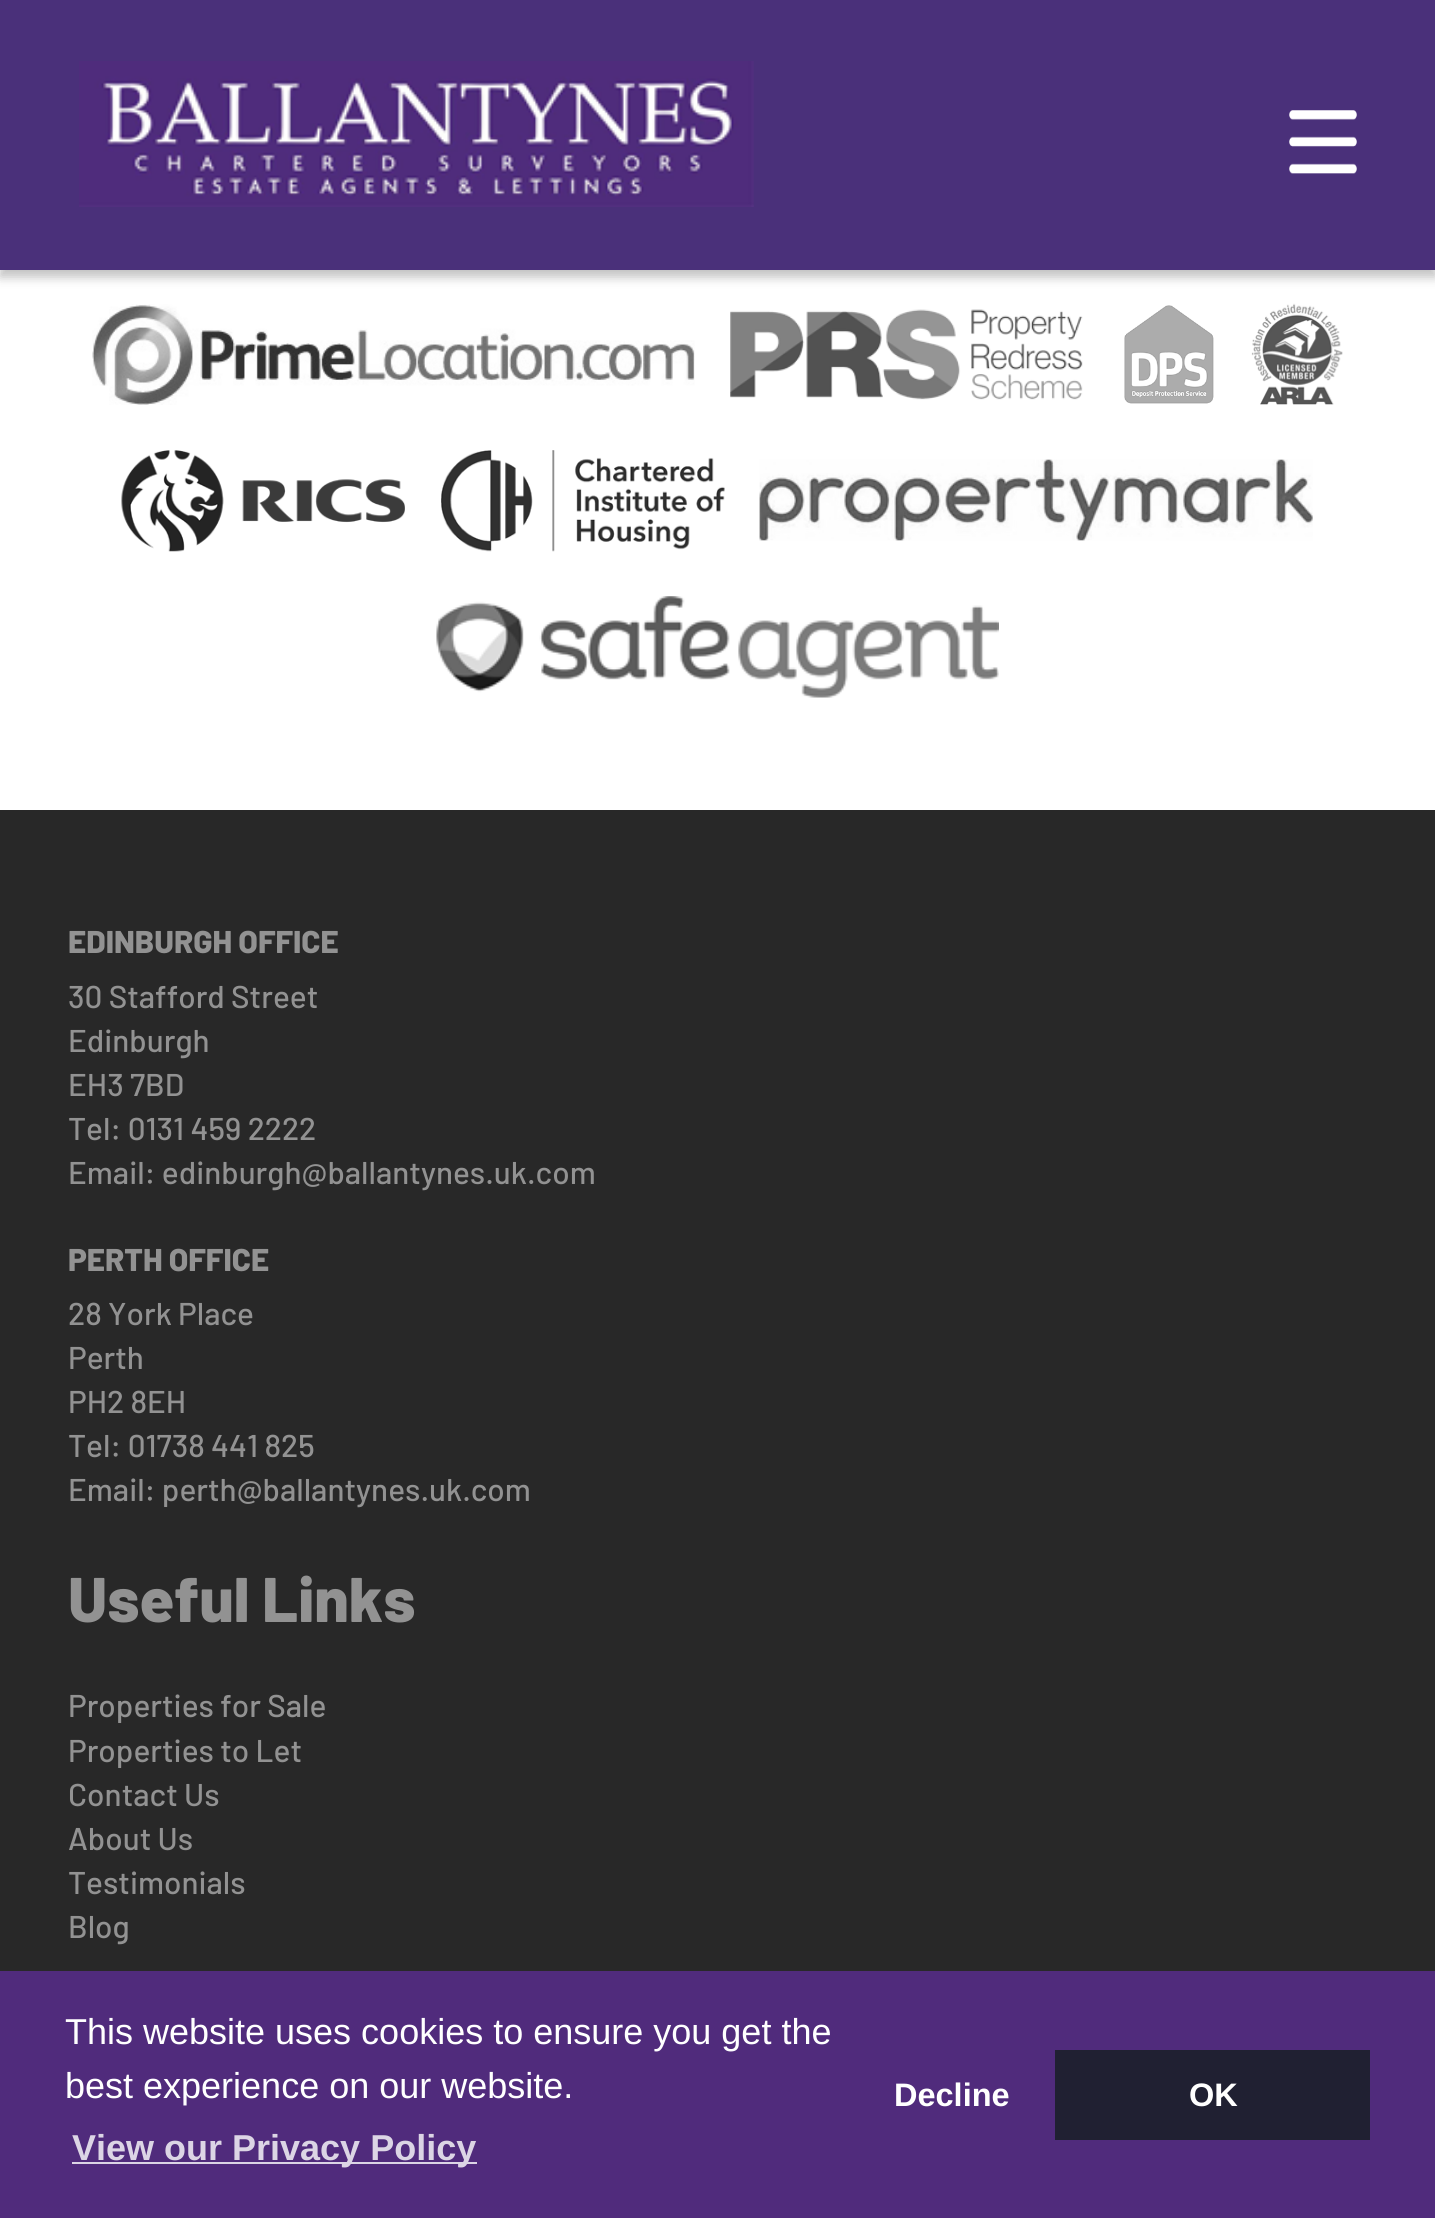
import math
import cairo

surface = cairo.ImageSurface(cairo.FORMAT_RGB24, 1435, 2218)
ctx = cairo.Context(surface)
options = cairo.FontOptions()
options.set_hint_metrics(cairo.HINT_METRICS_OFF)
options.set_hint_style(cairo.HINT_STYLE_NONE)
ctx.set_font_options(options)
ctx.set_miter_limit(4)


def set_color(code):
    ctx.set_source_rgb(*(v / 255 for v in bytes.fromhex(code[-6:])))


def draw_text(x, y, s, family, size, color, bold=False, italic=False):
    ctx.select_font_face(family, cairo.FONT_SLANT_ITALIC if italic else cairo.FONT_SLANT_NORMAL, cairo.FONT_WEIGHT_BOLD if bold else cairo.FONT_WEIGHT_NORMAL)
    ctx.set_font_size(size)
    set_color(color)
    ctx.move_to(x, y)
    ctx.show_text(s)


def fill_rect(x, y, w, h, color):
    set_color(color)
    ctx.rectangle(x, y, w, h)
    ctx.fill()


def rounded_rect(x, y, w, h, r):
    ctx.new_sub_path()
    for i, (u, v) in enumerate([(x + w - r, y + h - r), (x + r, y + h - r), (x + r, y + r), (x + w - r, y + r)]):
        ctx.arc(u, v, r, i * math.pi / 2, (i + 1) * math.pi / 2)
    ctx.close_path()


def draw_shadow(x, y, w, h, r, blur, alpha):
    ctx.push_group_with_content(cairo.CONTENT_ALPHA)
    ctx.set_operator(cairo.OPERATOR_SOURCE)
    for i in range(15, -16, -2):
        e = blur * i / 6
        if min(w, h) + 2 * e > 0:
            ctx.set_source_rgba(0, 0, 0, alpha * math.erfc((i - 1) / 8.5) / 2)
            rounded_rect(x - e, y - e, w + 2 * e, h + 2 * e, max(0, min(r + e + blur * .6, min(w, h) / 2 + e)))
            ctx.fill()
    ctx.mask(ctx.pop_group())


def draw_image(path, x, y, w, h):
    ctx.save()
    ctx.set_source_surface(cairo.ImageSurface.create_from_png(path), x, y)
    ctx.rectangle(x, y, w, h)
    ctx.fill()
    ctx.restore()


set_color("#ffffff")
ctx.paint()
set_color("#000000")
draw_shadow(0, 7, 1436, 270, 0, 5.5, 0.25)
fill_rect(0, 0, 1435, 270, "#4a307a")
draw_image("assets/img1.png", 1289, 110, 68, 64)
draw_image("assets/img2.png", 79, 61, 675, 146)
draw_image("assets/img3.png", 92, 304, 603, 101)
draw_image("assets/img4.png", 730, 309, 353, 91)
draw_image("assets/img5.png", 1124, 305, 90, 99)
draw_image("assets/img6.png", 1251, 303, 92, 102)
draw_image("assets/img7.png", 121, 450, 284, 102)
draw_image("assets/img8.png", 441, 450, 284, 102)
draw_image("assets/img9.png", 759, 459, 554, 82)
draw_image("assets/img10.png", 436, 596, 563, 102)
fill_rect(0, 810, 1435, 1161, "#282828")
draw_text(68, 953, "EDINBURGH OFFICE", "Barlow ExtraBold", 31.5, "#929292")
draw_text(68, 1008, "30 Stafford Street", "Barlow Medium", 31.5, "#929292")
draw_text(68, 1052, "Edinburgh", "Barlow Medium", 31.5, "#929292")
draw_text(68, 1096, "EH3 7BD", "Barlow Medium", 31.5, "#929292")
draw_text(68, 1140, "Tel: 0131 459 2222", "Barlow Medium", 31.5, "#929292")
draw_text(68, 1184, "Email: edinburgh@ballantynes.uk.com", "Barlow Medium", 31.5, "#929292")
draw_text(68, 1271, "PERTH OFFICE", "Barlow ExtraBold", 31.5, "#929292")
draw_text(68, 1325, "28 York Place", "Barlow Medium", 31.5, "#929292")
draw_text(68, 1369, "Perth", "Barlow Medium", 31.5, "#929292")
draw_text(68, 1413, "PH2 8EH", "Barlow Medium", 31.5, "#929292")
draw_text(68, 1457, "Tel: 01738 441 825", "Barlow Medium", 31.5, "#929292")
draw_text(68, 1501, "Email: perth@ballantynes.uk.com", "Barlow Medium", 31.5, "#929292")
draw_text(68, 1622, "Useful Links", "Barlow ExtraBold", 63, "#929292")
draw_text(68, 1717, "Properties for Sale", "Barlow Medium", 31.5, "#929292")
draw_text(68, 1762, "Properties to Let", "Barlow Medium", 31.5, "#929292")
draw_text(68, 1806, "Contact Us", "Barlow Medium", 31.5, "#929292")
draw_text(68, 1850, "About Us", "Barlow Medium", 31.5, "#929292")
draw_text(68, 1894, "Testimonials", "Barlow Medium", 31.5, "#929292")
draw_text(68, 1938, "Blog", "Barlow Medium", 31.5, "#929292")
fill_rect(0, 1971, 1435, 247, "#502b7c")
draw_text(65, 2044, "This website uses cookies to ensure you get the", "Liberation Sans", 36, "#ffffff")
draw_text(65, 2098, "best experience on our website.", "Liberation Sans", 36, "#ffffff")
fill_rect(72, 2162, 405, 2, "#dcd5e5")
draw_text(72, 2160, "View our Privacy Policy", "Liberation Sans", 36, "#dcd5e5", bold=True)
draw_text(894, 2106, "Decline", "Liberation Sans", 32.5, "#ffffff", bold=True)
fill_rect(1055, 2050, 315, 90, "#202032")
draw_text(1189, 2106, "OK", "Liberation Sans", 32.5, "#ffffff", bold=True)
surface.write_to_png("output.png")
